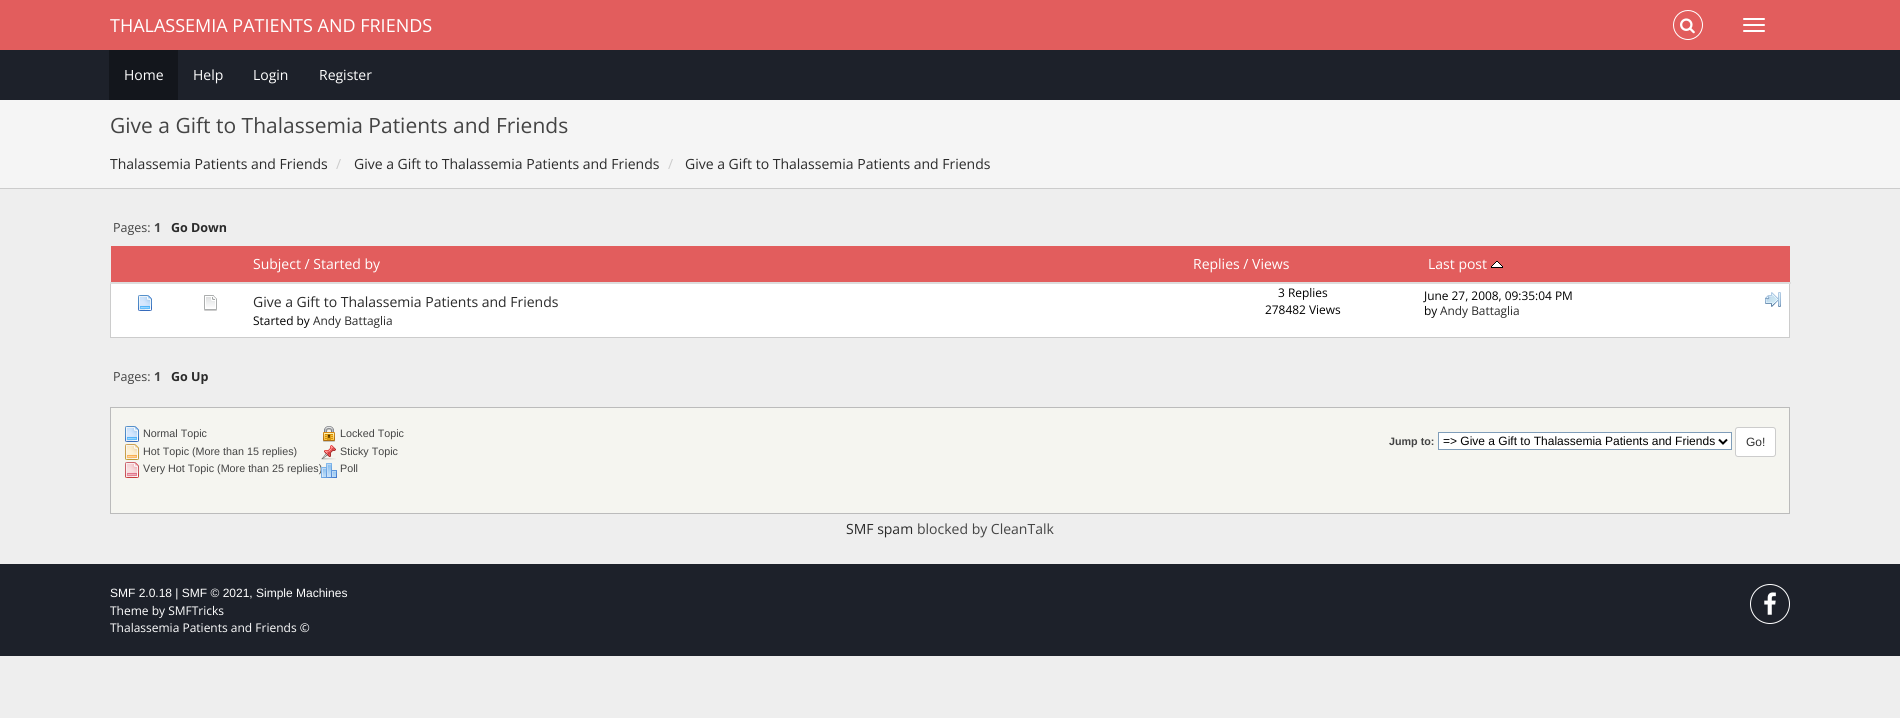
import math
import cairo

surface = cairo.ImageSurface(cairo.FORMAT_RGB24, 1900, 718)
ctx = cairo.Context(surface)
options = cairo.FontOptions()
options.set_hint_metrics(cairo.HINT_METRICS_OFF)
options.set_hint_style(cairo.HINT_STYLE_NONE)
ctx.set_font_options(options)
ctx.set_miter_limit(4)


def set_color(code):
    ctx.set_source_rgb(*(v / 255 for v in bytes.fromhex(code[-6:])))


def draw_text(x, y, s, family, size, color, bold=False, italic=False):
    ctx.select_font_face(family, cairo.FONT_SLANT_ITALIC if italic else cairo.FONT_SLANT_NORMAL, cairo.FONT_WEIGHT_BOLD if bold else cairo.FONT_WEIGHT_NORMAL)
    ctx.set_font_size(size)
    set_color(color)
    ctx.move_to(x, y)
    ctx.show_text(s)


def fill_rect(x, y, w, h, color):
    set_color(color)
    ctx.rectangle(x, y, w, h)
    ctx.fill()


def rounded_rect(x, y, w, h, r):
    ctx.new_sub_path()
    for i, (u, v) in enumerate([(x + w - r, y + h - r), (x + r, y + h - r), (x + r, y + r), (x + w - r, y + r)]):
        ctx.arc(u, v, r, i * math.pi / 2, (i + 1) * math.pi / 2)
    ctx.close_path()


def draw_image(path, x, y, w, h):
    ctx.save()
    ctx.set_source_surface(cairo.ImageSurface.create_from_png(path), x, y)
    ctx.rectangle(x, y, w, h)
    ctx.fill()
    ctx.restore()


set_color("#eeeeee")
ctx.paint()
fill_rect(0, 0, 1900, 50, "#e25d5d")
draw_text(110, 32, "THALASSEMIA PATIENTS AND FRIENDS", "Open Sans", 18, "#ffffff")
ctx.new_path()
ctx.arc(1688, 25, 14.5, 0, 2 * math.pi)
ctx.set_line_width(1)
ctx.stroke()
draw_image("assets/img1.png", 1680, 18, 15, 16)
rounded_rect(1743, 18, 22, 2, 1)
ctx.fill()
rounded_rect(1743, 24, 22, 2, 1)
ctx.fill()
rounded_rect(1743, 30, 22, 2, 1)
ctx.fill()
fill_rect(0, 50, 1900, 50, "#1d212a")
fill_rect(109, 50, 69, 50, "#13161c")
draw_text(124, 80, "Home", "Open Sans", 14, "#ffffff")
draw_text(193, 80, "Help", "Open Sans", 14, "#ffffff")
draw_text(253, 80, "Login", "Open Sans", 14, "#ffffff")
draw_text(319, 80, "Register", "Open Sans", 14, "#ffffff")
fill_rect(0, 100, 1900, 88, "#f5f5f5")
fill_rect(0, 188, 1900, 1, "#cccccc")
draw_text(110, 133, "Give a Gift to Thalassemia Patients and Friends", "Open Sans", 21, "#444444")
draw_text(110, 169, "Thalassemia Patients and Friends", "Open Sans", 14, "#2a2a2a")
draw_text(336, 169, "/", "Open Sans", 14, "#cccccc")
draw_text(354, 169, "Give a Gift to Thalassemia Patients and Friends", "Open Sans", 14, "#2a2a2a")
draw_text(668, 169, "/", "Open Sans", 14, "#cccccc")
draw_text(685, 169, "Give a Gift to Thalassemia Patients and Friends", "Open Sans", 14, "#2a2a2a")
draw_text(113, 232, "Pages:", "Open Sans", 12.5, "#444444")
draw_text(154, 232, "1", "Open Sans", 12.5, "#444444", bold=True)
draw_text(171, 232, "Go Down", "Open Sans", 12.5, "#2a2a2a", bold=True)
fill_rect(111, 246, 1679, 36, "#e25d5d")
draw_text(253, 269, "Subject / Started by", "Open Sans", 14, "#ffffff")
draw_text(1193, 269, "Replies / Views", "Open Sans", 14, "#ffffff")
fill_rect(1789, 282, 1, 56, "#cccccc")
fill_rect(110, 337, 1680, 1, "#cccccc")
fill_rect(110, 282, 1, 56, "#cccccc")
fill_rect(110, 282, 1681, 2, "#dddddd")
draw_text(1428, 269, "Last post", "Open Sans", 14, "#ffffff")
draw_image("assets/img2.png", 1491, 261, 12, 7)
fill_rect(111, 284, 1678, 53, "#ffffff")
draw_image("assets/img3.png", 138, 295, 14, 16)
draw_image("assets/img4.png", 204, 295, 13, 16)
draw_text(253, 307, "Give a Gift to Thalassemia Patients and Friends", "Open Sans", 14, "#2a2a2a")
draw_text(253, 325, "Started by", "Open Sans", 11.9, "#000000")
draw_text(313, 325, "Andy Battaglia", "Open Sans", 11.9, "#2a2a2a")
draw_text(1278, 297, "3 Replies", "Open Sans", 11.9, "#000000")
draw_text(1265, 314, "278482 Views", "Open Sans", 11.9, "#000000")
draw_text(1424, 300, "June 27, 2008, 09:35:04 PM", "Open Sans", 11.9, "#000000")
draw_image("assets/img5.png", 1765, 292, 16, 15)
draw_text(1424, 315, "by", "Open Sans", 11.9, "#000000")
draw_text(1440, 315, "Andy Battaglia", "Open Sans", 11.9, "#2a2a2a")
draw_text(113, 381, "Pages:", "Open Sans", 12.5, "#444444")
draw_text(154, 381, "1", "Open Sans", 12.5, "#444444", bold=True)
draw_text(171, 381, "Go Up", "Open Sans", 12.5, "#2a2a2a", bold=True)
set_color("#f5f5f0")
ctx.rectangle(110.5, 407.5, 1679, 106)
ctx.fill_preserve()
set_color("#bbbbbb")
ctx.stroke()
draw_image("assets/img6.png", 125, 426, 14, 16)
draw_text(143, 437, "Normal Topic", "Liberation Sans", 10.75, "#444444")
draw_image("assets/img7.png", 125, 444, 14, 16)
draw_text(143, 455, "Hot Topic (More than 15 replies)", "Liberation Sans", 10.75, "#444444")
draw_image("assets/img8.png", 125, 462, 14, 16)
draw_text(143, 472, "Very Hot Topic (More than 25 replies)", "Liberation Sans", 10.75, "#444444")
draw_image("assets/img9.png", 323, 426, 12, 16)
draw_text(340, 437, "Locked Topic", "Liberation Sans", 10.75, "#444444")
draw_image("assets/img10.png", 321, 445, 15, 15)
draw_text(340, 455, "Sticky Topic", "Liberation Sans", 10.75, "#444444")
draw_image("assets/img11.png", 321, 463, 16, 15)
draw_text(340, 472, "Poll", "Liberation Sans", 10.75, "#444444")
draw_text(1389, 445, "Jump to:", "Liberation Sans", 10.75, "#444444", bold=True)
set_color("#ffffff")
ctx.rectangle(1438.5, 432.5, 293, 17)
ctx.fill_preserve()
set_color("#7f9db9")
ctx.stroke()
ctx.new_path()
ctx.move_to(1719, 439.5)
ctx.line_to(1723, 443.5)
ctx.line_to(1727, 439.5)
set_color("#000000")
ctx.set_line_width(2)
ctx.stroke()
draw_text(1443, 445, "=> Give a Gift to Thalassemia Patients and Friends", "Liberation Sans", 12, "#000000")
set_color("#ffffff")
rounded_rect(1735.5, 427.5, 40, 29, 2.5)
ctx.fill_preserve()
set_color("#cccccc")
ctx.set_line_width(1)
ctx.stroke()
draw_text(1746, 446, "Go!", "Liberation Sans", 12, "#333333")
draw_text(846, 534, "SMF spam", "Open Sans", 14, "#2a2a2a")
draw_text(917, 534, "blocked by CleanTalk", "Open Sans", 14, "#444444")
fill_rect(0, 564, 1900, 92, "#1d212a")
draw_text(110, 597, "SMF 2.0.18 | SMF © 2021, Simple Machines", "Liberation Sans", 12, "#ffffff")
draw_text(110, 615, "Theme by SMFTricks", "Open Sans", 12, "#ffffff")
draw_text(110, 632, "Thalassemia Patients and Friends ©", "Open Sans", 12, "#ffffff")
ctx.new_path()
ctx.arc(1770, 604, 19.5, 0, 2 * math.pi)
ctx.stroke()
draw_image("assets/img12.png", 1764, 592, 12, 23)
surface.write_to_png("output.png")
